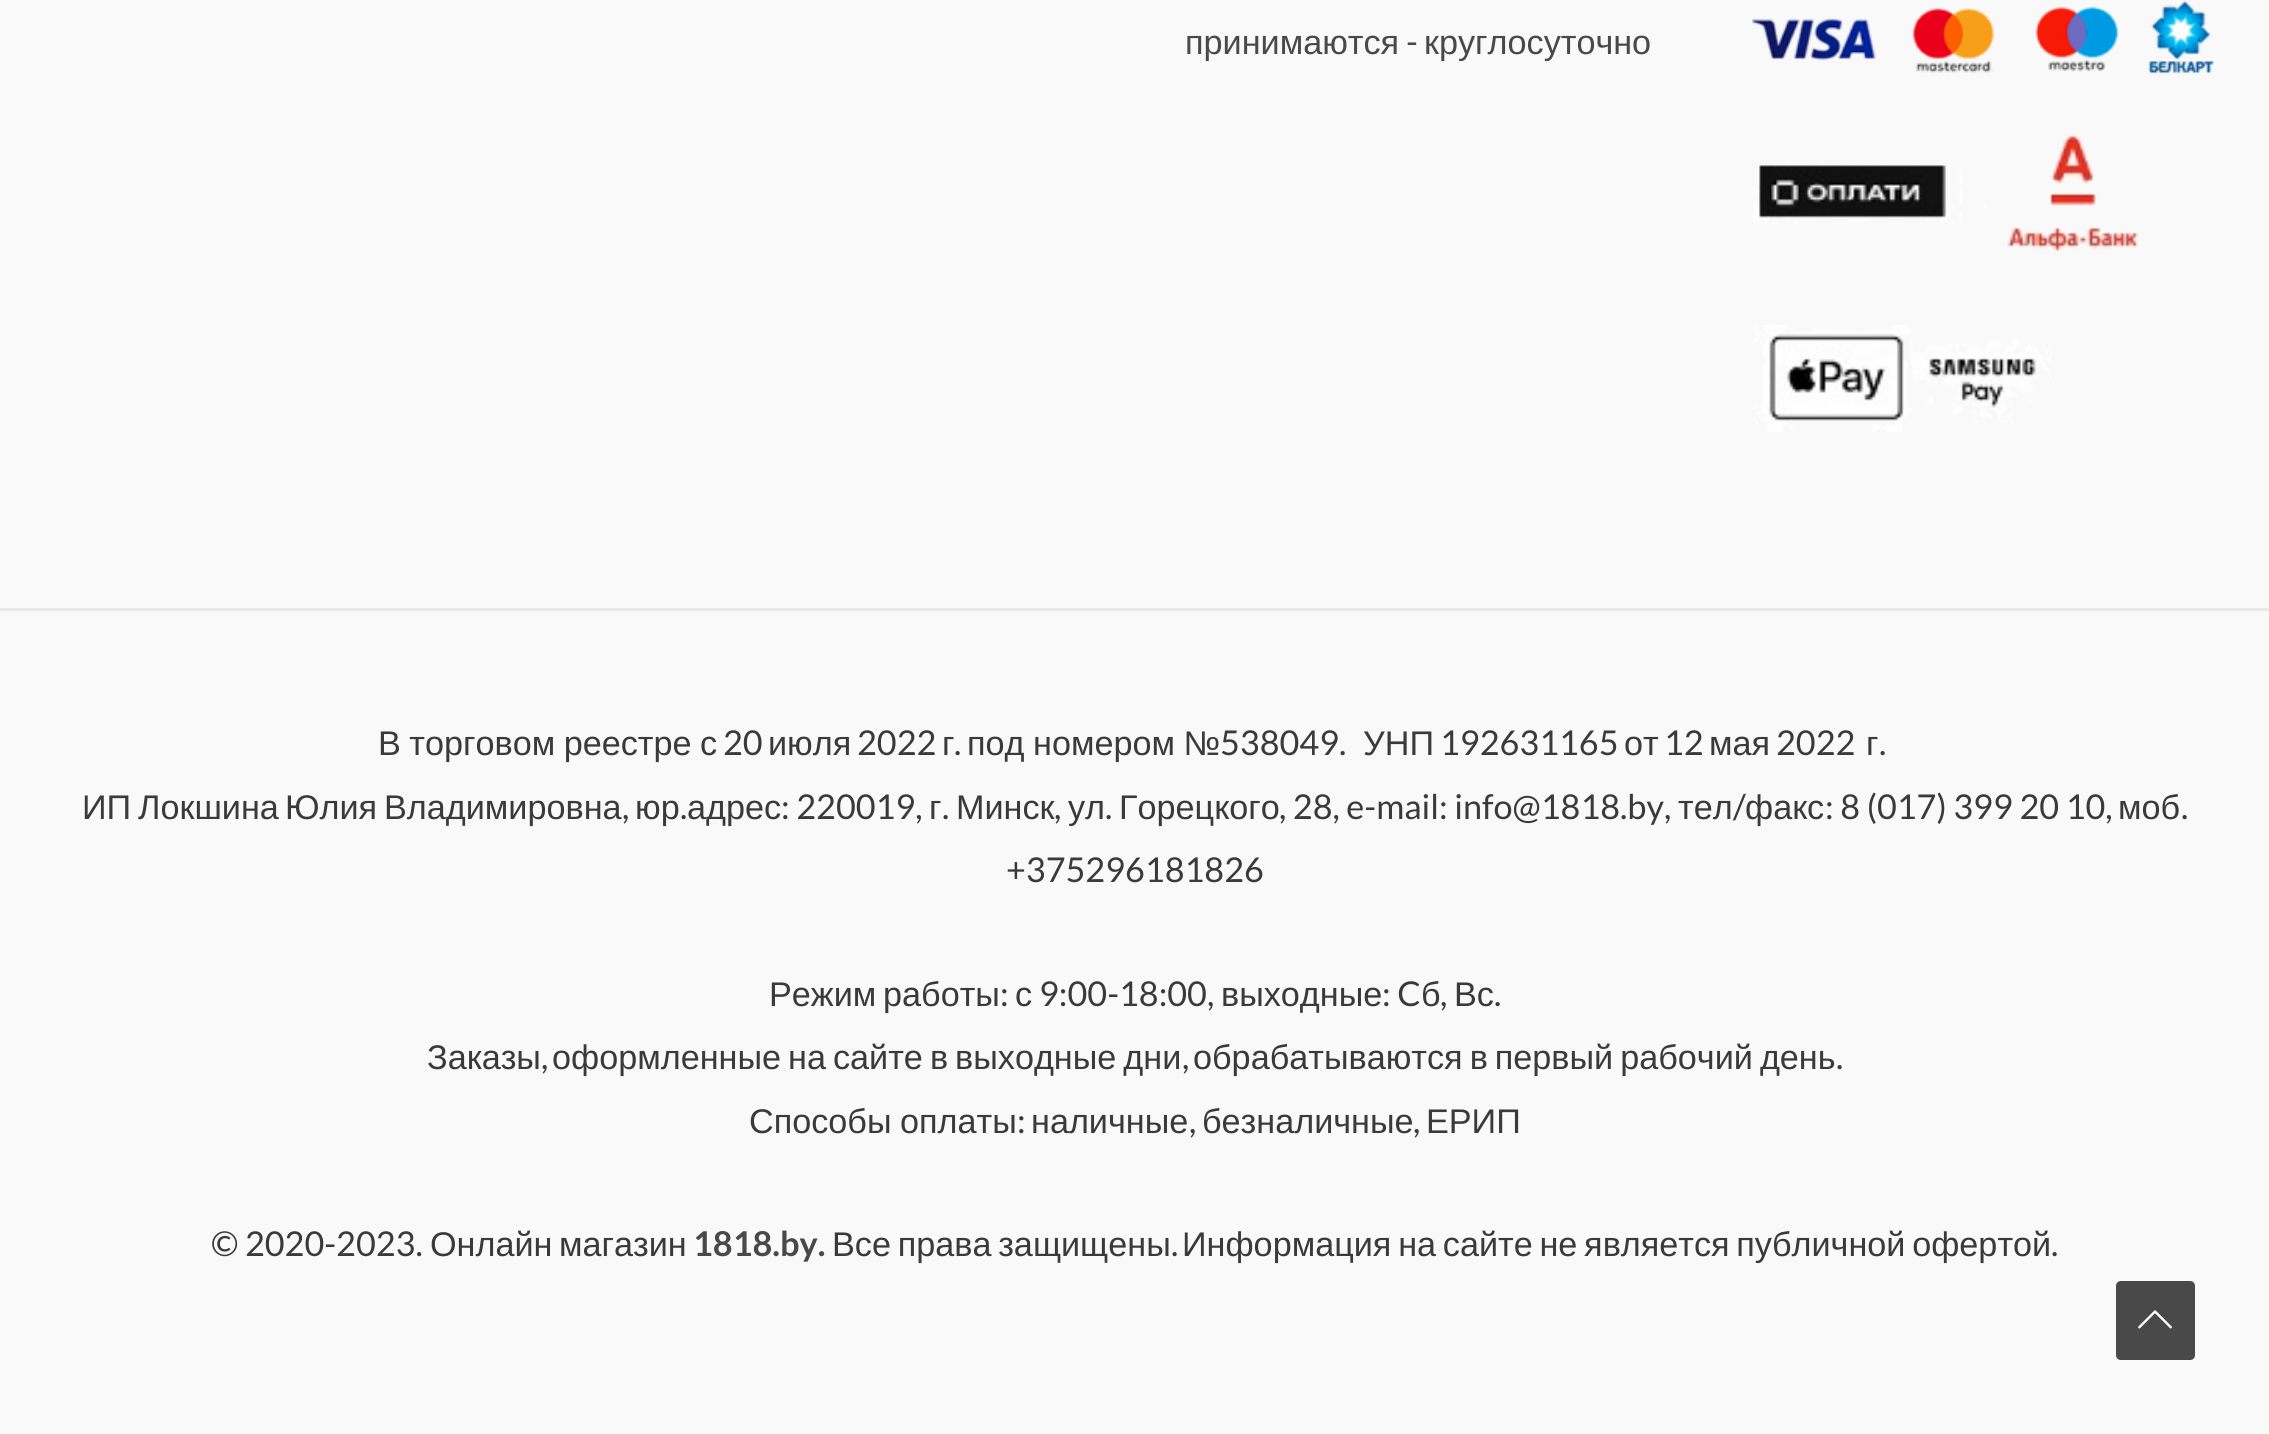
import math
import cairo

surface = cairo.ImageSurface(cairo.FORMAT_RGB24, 2269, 1434)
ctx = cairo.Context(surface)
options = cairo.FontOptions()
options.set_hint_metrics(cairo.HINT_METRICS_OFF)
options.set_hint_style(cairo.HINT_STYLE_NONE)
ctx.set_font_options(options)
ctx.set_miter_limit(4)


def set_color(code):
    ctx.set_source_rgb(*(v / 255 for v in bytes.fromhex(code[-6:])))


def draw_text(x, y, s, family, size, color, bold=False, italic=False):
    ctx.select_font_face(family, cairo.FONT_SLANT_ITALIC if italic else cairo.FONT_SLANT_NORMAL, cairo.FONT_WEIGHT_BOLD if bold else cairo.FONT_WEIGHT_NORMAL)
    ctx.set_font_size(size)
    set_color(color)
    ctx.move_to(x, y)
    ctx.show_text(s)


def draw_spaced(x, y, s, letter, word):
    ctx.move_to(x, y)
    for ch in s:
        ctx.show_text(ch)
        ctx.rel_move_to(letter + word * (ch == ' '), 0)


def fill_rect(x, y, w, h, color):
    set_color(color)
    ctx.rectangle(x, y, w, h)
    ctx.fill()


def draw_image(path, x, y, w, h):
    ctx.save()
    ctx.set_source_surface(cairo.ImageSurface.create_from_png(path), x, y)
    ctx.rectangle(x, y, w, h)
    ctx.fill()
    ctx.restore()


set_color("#f9f9f9")
ctx.paint()
draw_text(1185, 54, "принимаются", "Liberation Sans", 34.2, "#494949")
draw_text(1406, 54, "-", "Lato", 34.2, "#494949")
draw_text(1424, 54, "круглосуточно", "Liberation Sans", 34.2, "#494949")
draw_image("assets/img1.png", 1752, 0, 463, 74)
draw_image("assets/img2.png", 1753, 134, 386, 123)
draw_image("assets/img3.png", 1753, 325, 299, 107)
fill_rect(0, 608, 2269, 3, "#e8e8e8")
set_color("#3a3a3a")
draw_spaced(378, 755, "В торговом реестре с", 0, -1)
draw_text(723, 755, "20", "Lato", 34.2, "#3a3a3a")
draw_text(768, 755, "июля", "Liberation Sans", 34.2, "#3a3a3a")
draw_text(857, 755, "2022", "Lato", 34.2, "#3a3a3a")
draw_text(942, 755, "г", "Liberation Sans", 34.2, "#3a3a3a")
draw_text(954, 755, ".", "Lato", 34.2, "#3a3a3a")
ctx.select_font_face("Liberation Sans")
draw_spaced(967, 755, "под номером №", 0, -1)
draw_text(1220, 755, "538049.", "Lato", 34.2, "#3a3a3a")
draw_text(1363, 755, "УНП", "Liberation Sans", 34.2, "#3a3a3a")
draw_text(1440, 755, "192631165", "Lato", 34.2, "#3a3a3a")
draw_text(1624, 755, "от", "Liberation Sans", 34.2, "#3a3a3a")
draw_text(1664, 755, "12", "Lato", 34.2, "#3a3a3a")
draw_text(1709, 755, "мая", "Liberation Sans", 34.2, "#3a3a3a")
draw_text(1776, 755, "2022", "Lato", 34.2, "#3a3a3a")
draw_text(1866, 755, "г", "Liberation Sans", 34.2, "#3a3a3a")
draw_text(1879, 755, ".", "Lato", 34.2, "#3a3a3a")
draw_text(82, 819, "ИП", "Liberation Sans", 34.2, "#3a3a3a")
draw_text(138, 819, "Локшина", "Liberation Sans", 34.2, "#3a3a3a")
draw_text(285, 819, "Юлия", "Liberation Sans", 34.2, "#3a3a3a")
draw_text(384, 819, "Владимировна", "Liberation Sans", 34.2, "#3a3a3a")
draw_text(622, 819, ",", "Lato", 34.2, "#3a3a3a")
draw_text(635, 819, "юр", "Liberation Sans", 34.2, "#3a3a3a")
draw_text(680, 819, ".", "Lato", 34.2, "#3a3a3a")
draw_text(687, 819, "адрес", "Liberation Sans", 34.2, "#3a3a3a")
draw_text(781, 819, ": 220019,", "Lato", 34.2, "#3a3a3a")
draw_text(929, 819, "г", "Liberation Sans", 34.2, "#3a3a3a")
draw_text(942, 819, ".", "Lato", 34.2, "#3a3a3a")
draw_text(956, 819, "Минск", "Liberation Sans", 34.2, "#3a3a3a")
draw_text(1054, 819, ",", "Lato", 34.2, "#3a3a3a")
draw_text(1068, 819, "ул", "Liberation Sans", 34.2, "#3a3a3a")
draw_text(1105, 819, ".", "Lato", 34.2, "#3a3a3a")
draw_text(1119, 819, "Горецкого", "Liberation Sans", 34.2, "#3a3a3a")
draw_text(1279, 819, ", 28, e-mail: info@1818.by,", "Lato", 34.2, "#3a3a3a")
draw_text(1678, 819, "тел", "Liberation Sans", 34.2, "#3a3a3a")
draw_text(1733, 819, "/", "Lato", 34.2, "#3a3a3a")
draw_text(1745, 819, "факс", "Liberation Sans", 34.2, "#3a3a3a")
draw_text(1825, 819, ": 8 (017) 399 20 10,", "Lato", 34.2, "#3a3a3a")
draw_text(2118, 819, "моб", "Liberation Sans", 34.2, "#3a3a3a")
draw_text(2181, 819, ".", "Lato", 34.2, "#3a3a3a")
draw_text(1006, 882, "+375296181826", "Lato", 34.2, "#3a3a3a")
draw_text(769, 1006, "Режим", "Liberation Sans", 34.2, "#3a3a3a")
draw_text(883, 1006, "работы", "Liberation Sans", 34.2, "#3a3a3a")
draw_text(1000, 1006, ":", "Lato", 34.2, "#3a3a3a")
draw_text(1015, 1006, "с", "Liberation Sans", 34.2, "#3a3a3a")
draw_text(1039, 1006, "9:00-18:00,", "Lato", 34.2, "#3a3a3a")
draw_text(1221, 1006, "выходные", "Liberation Sans", 34.2, "#3a3a3a")
draw_text(1382, 1006, ": C", "Lato", 34.2, "#3a3a3a")
draw_text(1421, 1006, "б", "Liberation Sans", 34.2, "#3a3a3a")
draw_text(1440, 1006, ",", "Lato", 34.2, "#3a3a3a")
draw_text(1454, 1006, "Вс", "Liberation Sans", 34.2, "#3a3a3a")
draw_text(1494, 1006, ".", "Lato", 34.2, "#3a3a3a")
draw_text(427, 1069, "Заказы", "Liberation Sans", 34.2, "#3a3a3a")
draw_text(541, 1069, ",", "Lato", 34.2, "#3a3a3a")
ctx.select_font_face("Liberation Sans")
draw_spaced(552, 1069, "оформленные на сайте в выходные дни", 0, -2.5)
draw_text(1182, 1069, ",", "Lato", 34.2, "#3a3a3a")
ctx.select_font_face("Liberation Sans")
draw_spaced(1193, 1069, "обрабатываются в первый рабочий день", 0, -2.5)
draw_text(1836, 1069, ".", "Lato", 34.2, "#3a3a3a")
ctx.select_font_face("Liberation Sans")
draw_spaced(749, 1133, "Способы оплаты", 0, -1)
draw_text(1017, 1133, ":", "Lato", 34.2, "#3a3a3a")
draw_text(1031, 1133, "наличные", "Liberation Sans", 34.2, "#3a3a3a")
draw_text(1189, 1133, ",", "Lato", 34.2, "#3a3a3a")
draw_text(1202, 1133, "безналичные", "Liberation Sans", 34.2, "#3a3a3a")
draw_text(1413, 1133, ",", "Lato", 34.2, "#3a3a3a")
draw_text(1426, 1133, "ЕРИП", "Liberation Sans", 34.2, "#3a3a3a")
draw_text(211, 1256, "© 2020-2023.", "Lato", 34.2, "#3a3a3a")
draw_text(430, 1256, "Онлайн", "Liberation Sans", 34.2, "#3a3a3a")
draw_text(559, 1256, "магазин", "Liberation Sans", 34.2, "#3a3a3a")
draw_text(693, 1256, "1818.by.", "Lato", 34.2, "#494949", bold=True)
ctx.select_font_face("Liberation Sans")
set_color("#3a3a3a")
draw_spaced(832, 1256, "Все права защищены", 0, -2.75)
draw_text(1171, 1256, ".", "Lato", 34.2, "#3a3a3a")
ctx.select_font_face("Liberation Sans")
draw_spaced(1182, 1256, "Информация на сайте не является публичной офертой", 0, -2.75)
draw_text(2051, 1256, ".", "Lato", 34.2, "#3a3a3a")
set_color("#494949")
ctx.new_path()
ctx.move_to(2190, 1360)
ctx.line_to(2121, 1360)
ctx.curve_to(2118, 1360, 2116, 1358, 2116, 1355)
ctx.line_to(2116, 1286)
ctx.curve_to(2116, 1283, 2118, 1281, 2121, 1281)
ctx.line_to(2190, 1281)
ctx.curve_to(2193, 1281, 2195, 1283, 2195, 1286)
ctx.line_to(2195, 1355)
ctx.curve_to(2195, 1358, 2193, 1360, 2190, 1360)
ctx.close_path()
ctx.fill()
draw_image("assets/img4.png", 2138, 1310, 34, 19)
surface.write_to_png("output.png")
